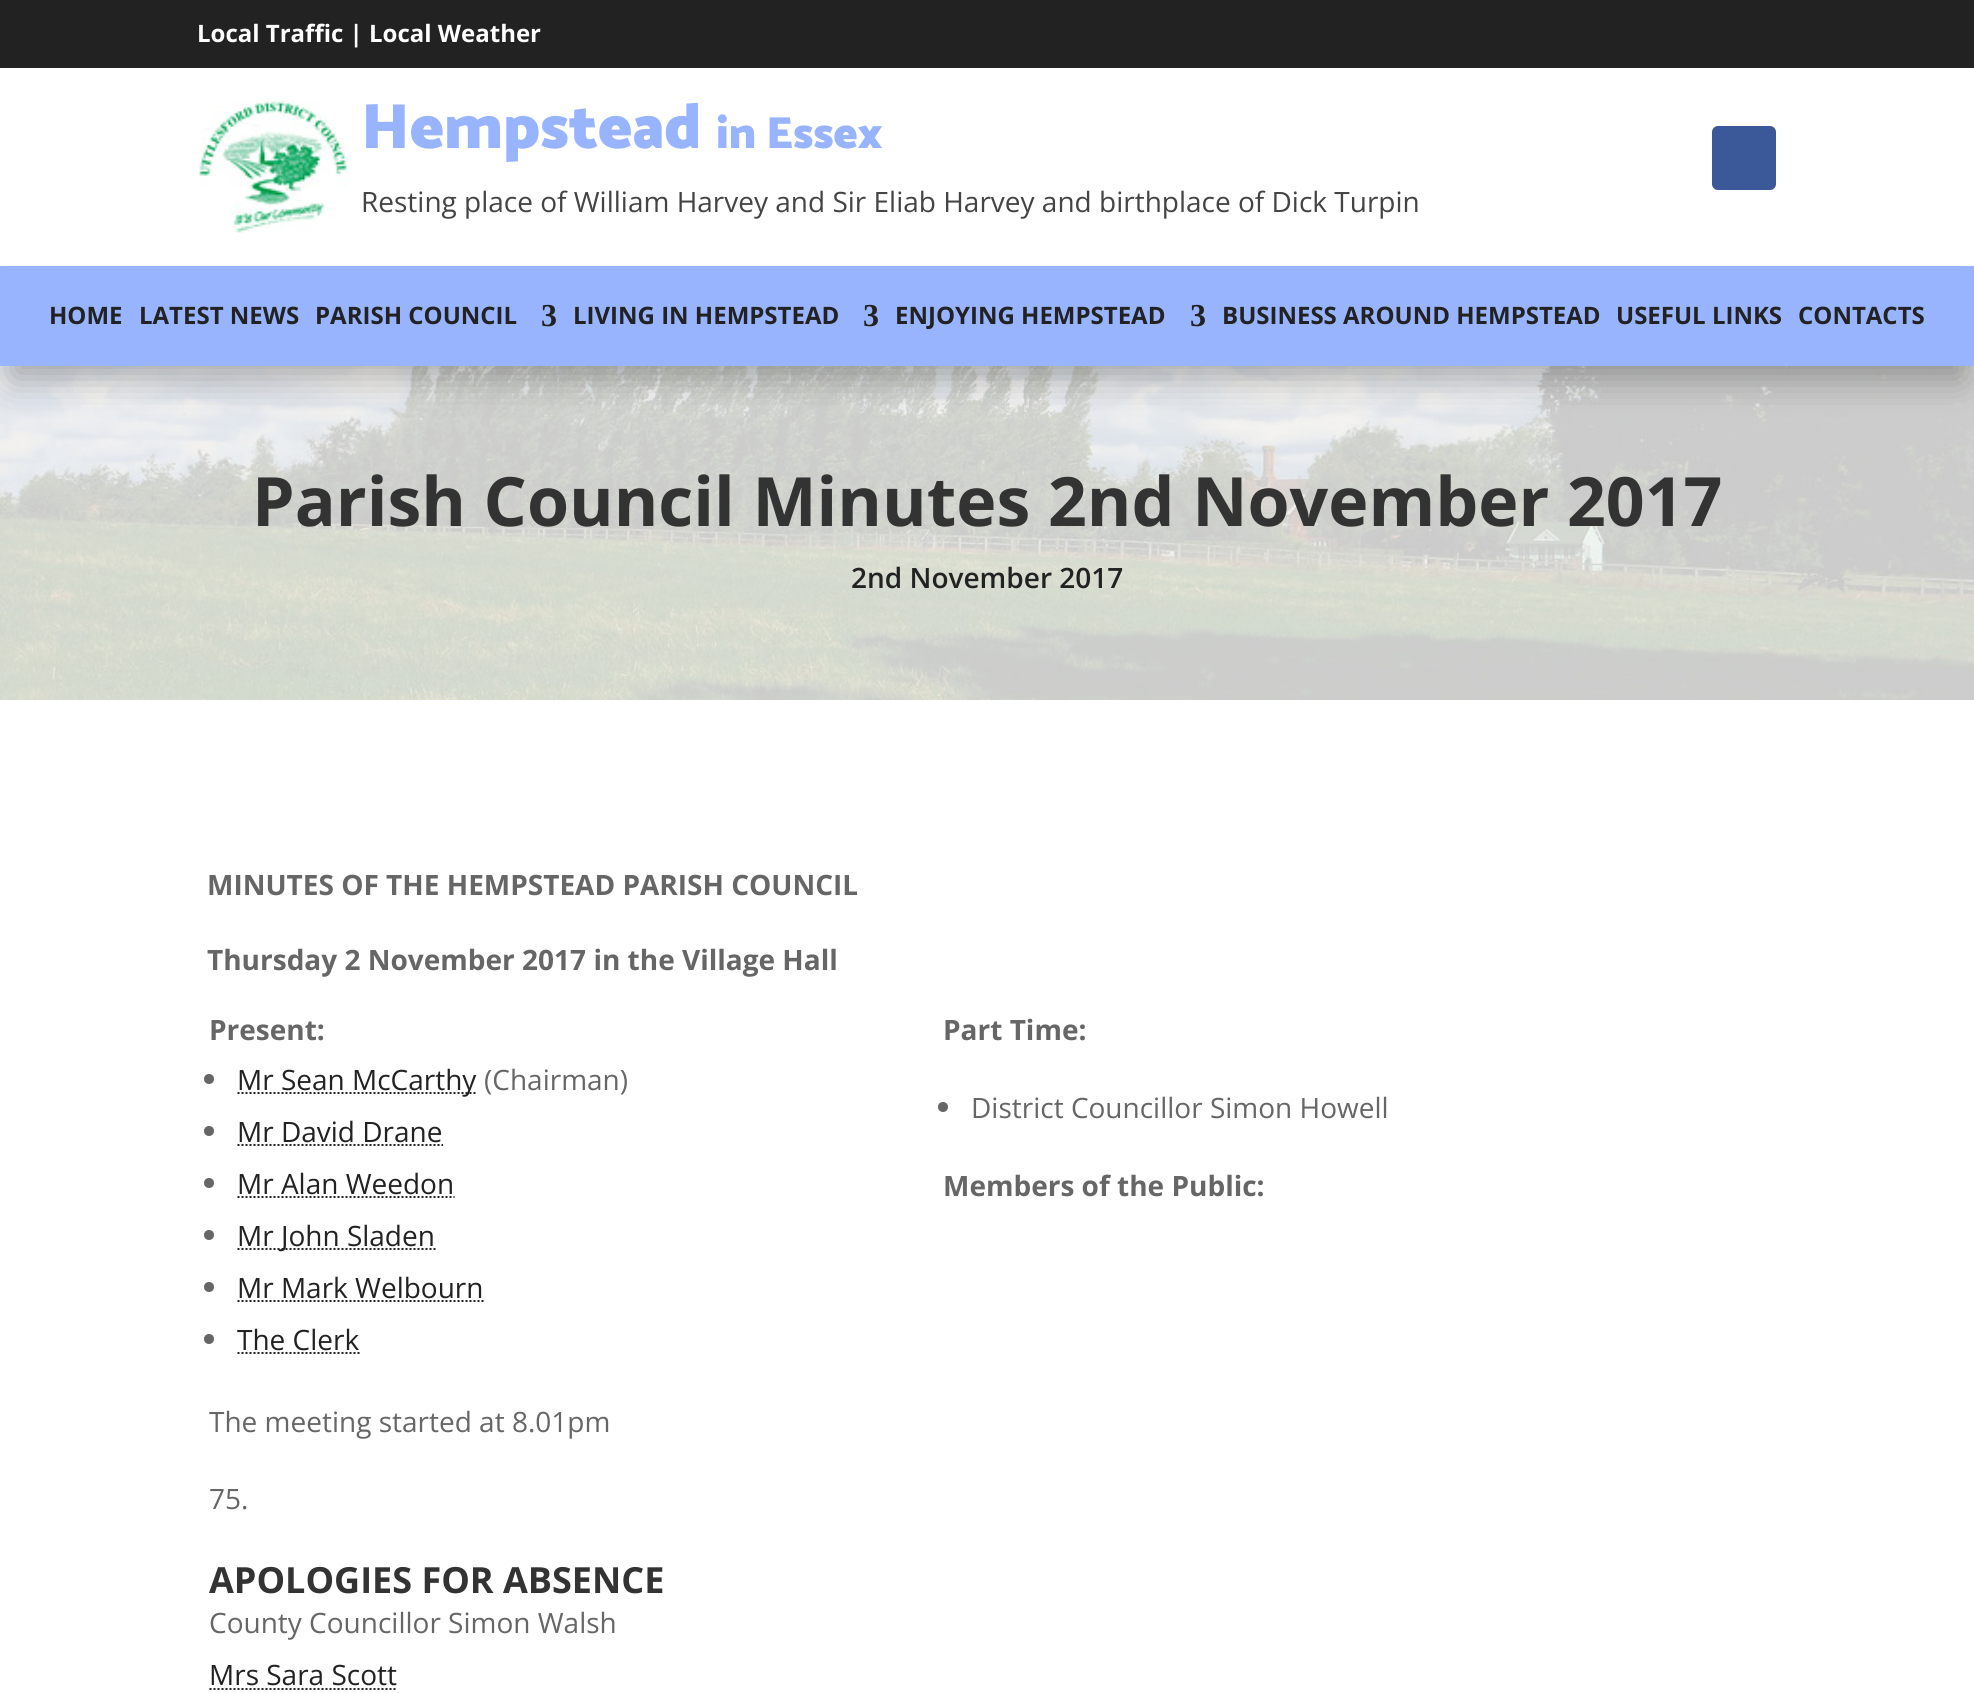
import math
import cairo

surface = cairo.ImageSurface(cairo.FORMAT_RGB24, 1974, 1693)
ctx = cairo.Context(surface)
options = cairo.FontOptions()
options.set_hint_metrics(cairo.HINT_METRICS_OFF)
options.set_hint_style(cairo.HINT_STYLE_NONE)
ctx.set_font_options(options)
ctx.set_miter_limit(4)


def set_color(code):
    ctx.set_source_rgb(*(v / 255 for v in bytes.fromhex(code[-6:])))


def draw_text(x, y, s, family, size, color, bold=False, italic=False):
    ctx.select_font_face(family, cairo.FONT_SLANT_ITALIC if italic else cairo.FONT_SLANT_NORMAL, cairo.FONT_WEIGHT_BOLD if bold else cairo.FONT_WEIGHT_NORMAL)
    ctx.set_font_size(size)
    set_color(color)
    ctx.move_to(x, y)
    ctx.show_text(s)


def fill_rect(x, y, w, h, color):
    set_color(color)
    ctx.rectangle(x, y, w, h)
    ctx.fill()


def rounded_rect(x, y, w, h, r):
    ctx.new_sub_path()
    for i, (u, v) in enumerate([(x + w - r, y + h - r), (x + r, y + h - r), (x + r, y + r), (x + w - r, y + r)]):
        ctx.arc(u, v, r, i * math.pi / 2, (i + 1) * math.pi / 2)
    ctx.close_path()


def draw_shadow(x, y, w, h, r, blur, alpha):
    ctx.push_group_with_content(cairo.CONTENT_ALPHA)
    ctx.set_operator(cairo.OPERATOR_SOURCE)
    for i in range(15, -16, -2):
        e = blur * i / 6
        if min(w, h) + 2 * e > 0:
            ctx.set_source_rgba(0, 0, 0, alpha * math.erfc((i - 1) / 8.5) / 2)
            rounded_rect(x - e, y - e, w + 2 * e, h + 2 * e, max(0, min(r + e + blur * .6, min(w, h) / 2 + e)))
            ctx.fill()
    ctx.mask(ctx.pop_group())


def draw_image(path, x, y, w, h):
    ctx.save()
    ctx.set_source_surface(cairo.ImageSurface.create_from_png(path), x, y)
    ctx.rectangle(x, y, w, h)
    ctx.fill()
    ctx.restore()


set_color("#ffffff")
ctx.paint()
fill_rect(0, 0, 1974, 68, "#222222")
draw_text(197, 42, "Local Traffic | Local Weather", "Open Sans", 24, "#ffffff", bold=True)
draw_image("assets/img1.png", 199, 100, 149, 133)
draw_text(361, 148, "Hempstead", "Catamaran Black", 64, "#99b4ff")
draw_text(716, 148, "in Essex", "Catamaran Black", 45, "#99b4ff")
set_color("#3b5998")
rounded_rect(1712, 126, 64, 64, 6)
ctx.fill()
draw_text(361, 212, "Resting place of William Harvey and Sir Eliab Harvey and birthplace of Dick Turpin", "Open Sans", 28, "#444444")
draw_image("assets/img2.png", 0, 366, 1974, 334)
set_color("#000000")
draw_shadow(12, 302, 1950, 76, 0, 18, 0.3)
fill_rect(0, 266, 1974, 100, "#99b4ff")
draw_text(49, 324, "HOME", "Open Sans", 24, "#222222", bold=True)
draw_text(139, 324, "LATEST NEWS", "Open Sans", 24, "#222222", bold=True)
draw_text(315, 324, "PARISH COUNCIL", "Open Sans", 24, "#222222", bold=True)
draw_text(541, 326, "3", "Liberation Serif", 32, "#222222", bold=True)
draw_text(573, 324, "LIVING IN HEMPSTEAD", "Open Sans", 24, "#222222", bold=True)
draw_text(863, 326, "3", "Liberation Serif", 32, "#222222", bold=True)
draw_text(895, 324, "ENJOYING HEMPSTEAD", "Open Sans", 24, "#222222", bold=True)
draw_text(1190, 326, "3", "Liberation Serif", 32, "#222222", bold=True)
draw_text(1222, 324, "BUSINESS AROUND HEMPSTEAD", "Open Sans", 24, "#222222", bold=True)
draw_text(1616, 324, "USEFUL LINKS", "Open Sans", 24, "#222222", bold=True)
draw_text(1798, 324, "CONTACTS", "Open Sans", 24, "#222222", bold=True)
draw_text(252, 526, "Parish Council Minutes 2nd November 2017", "Open Sans", 68, "#333333", bold=True)
draw_text(851, 588, "2nd November 2017", "Open Sans SemiBold", 28, "#222222")
draw_text(207, 895, "MINUTES OF THE HEMPSTEAD PARISH COUNCIL", "Open Sans", 28, "#666666", bold=True)
draw_text(207, 970, "Thursday 2 November 2017 in the Village Hall", "Open Sans", 28, "#666666", bold=True)
draw_text(209, 1040, "Present:", "Open Sans", 28, "#666666", bold=True)
ctx.new_path()
ctx.arc(209, 1079, 5, 0, 2 * math.pi)
ctx.fill()
ctx.new_path()
ctx.move_to(237.5, 1093)
ctx.line_to(477, 1093)
set_color("#222222")
ctx.set_dash([2, 2])
ctx.stroke()
draw_text(237, 1090, "Mr Sean McCarthy", "Open Sans", 28, "#222222")
draw_text(484, 1090, "(Chairman)", "Open Sans", 28, "#666666")
ctx.new_path()
ctx.arc(209, 1131, 5, 0, 2 * math.pi)
ctx.fill()
draw_text(237, 1142, "Mr David Drane", "Open Sans", 28, "#222222")
ctx.new_path()
ctx.move_to(237.5, 1145)
ctx.line_to(443, 1145)
ctx.stroke()
set_color("#666666")
ctx.arc(209, 1183, 5, 0, 2 * math.pi)
ctx.fill()
draw_text(237, 1194, "Mr Alan Weedon", "Open Sans", 28, "#222222")
ctx.new_path()
ctx.move_to(237.5, 1197)
ctx.line_to(454.5, 1197)
ctx.stroke()
set_color("#666666")
ctx.arc(209, 1235, 5, 0, 2 * math.pi)
ctx.fill()
ctx.new_path()
ctx.move_to(237.5, 1249)
ctx.line_to(435.5, 1249)
set_color("#222222")
ctx.stroke()
draw_text(237, 1246, "Mr John Sladen", "Open Sans", 28, "#222222")
set_color("#666666")
ctx.new_path()
ctx.arc(209, 1287, 5, 0, 2 * math.pi)
ctx.fill()
draw_text(237, 1298, "Mr Mark Welbourn", "Open Sans", 28, "#222222")
ctx.new_path()
ctx.move_to(237.5, 1301)
ctx.line_to(484, 1301)
ctx.stroke()
set_color("#666666")
ctx.arc(209, 1339, 5, 0, 2 * math.pi)
ctx.fill()
draw_text(237, 1350, "The Clerk", "Open Sans", 28, "#222222")
ctx.new_path()
ctx.move_to(237.5, 1353)
ctx.line_to(359.5, 1353)
ctx.stroke()
draw_text(943, 1040, "Part Time:", "Open Sans", 28, "#666666", bold=True)
ctx.new_path()
ctx.arc(943, 1107, 5, 0, 2 * math.pi)
ctx.fill()
draw_text(971, 1118, "District Councillor Simon Howell", "Open Sans", 28, "#666666")
draw_text(943, 1196, "Members of the Public:", "Open Sans", 28, "#666666", bold=True)
draw_text(209, 1432, "The meeting started at 8.01pm", "Open Sans", 28, "#666666")
draw_text(209, 1509, "75.", "Open Sans", 28, "#666666")
draw_text(209, 1593, "APOLOGIES FOR ABSENCE", "Open Sans", 36, "#333333", bold=True)
draw_text(209, 1633, "County Councillor Simon Walsh", "Open Sans", 28, "#666666")
draw_text(209, 1685, "Mrs Sara Scott", "Open Sans", 28, "#222222")
ctx.new_path()
ctx.move_to(209.5, 1689)
ctx.line_to(397.5, 1689)
ctx.stroke()
surface.write_to_png("output.png")
